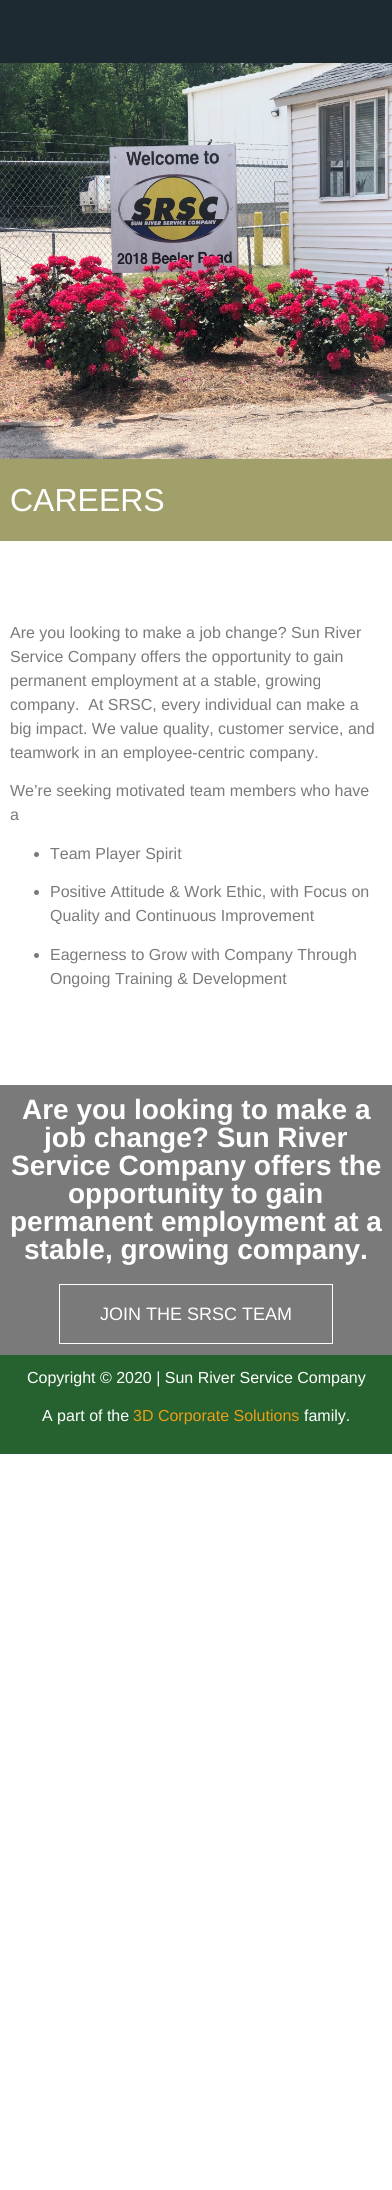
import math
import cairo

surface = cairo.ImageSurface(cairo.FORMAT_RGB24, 392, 2190)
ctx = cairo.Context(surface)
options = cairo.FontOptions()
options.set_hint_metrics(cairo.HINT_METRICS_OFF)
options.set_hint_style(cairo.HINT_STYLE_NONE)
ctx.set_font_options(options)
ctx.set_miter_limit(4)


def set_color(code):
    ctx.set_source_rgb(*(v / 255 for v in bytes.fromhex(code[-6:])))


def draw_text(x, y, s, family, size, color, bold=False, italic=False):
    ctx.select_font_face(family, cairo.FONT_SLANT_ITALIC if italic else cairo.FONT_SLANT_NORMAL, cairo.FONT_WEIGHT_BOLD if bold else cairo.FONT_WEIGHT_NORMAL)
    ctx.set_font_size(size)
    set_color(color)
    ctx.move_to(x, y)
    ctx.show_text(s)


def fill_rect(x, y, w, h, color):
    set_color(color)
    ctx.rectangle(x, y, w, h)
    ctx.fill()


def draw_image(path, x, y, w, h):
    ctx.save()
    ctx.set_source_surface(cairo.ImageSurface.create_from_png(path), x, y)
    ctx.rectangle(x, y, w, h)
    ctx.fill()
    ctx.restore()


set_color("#ffffff")
ctx.paint()
fill_rect(0, 0, 392, 63, "#1d2a32")
draw_image("assets/img1.png", 0, 63, 392, 396)
fill_rect(0, 459, 392, 82, "#a1a06a")
draw_text(10, 511, "CAREERS", "Liberation Sans", 32, "#ffffff")
draw_text(10, 638, "Are you looking to make a job change? Sun River", "Liberation Sans", 16, "#7a7a7a")
draw_text(10, 662, "Service Company offers the opportunity to gain", "Liberation Sans", 16, "#7a7a7a")
draw_text(10, 686, "permanent employment at a stable, growing", "Liberation Sans", 16, "#7a7a7a")
draw_text(10, 710, "company.  At SRSC, every individual can make a", "Liberation Sans", 16, "#7a7a7a")
draw_text(10, 734, "big impact. We value quality, customer service, and", "Liberation Sans", 16, "#7a7a7a")
draw_text(10, 758, "teamwork in an employee-centric company.", "Liberation Sans", 16, "#7a7a7a")
draw_text(10, 796, "We’re seeking motivated team members who have", "Liberation Sans", 16, "#7a7a7a")
draw_text(10, 820, "a", "Liberation Sans", 16, "#7a7a7a")
ctx.new_path()
ctx.arc(36.5, 854.5, 2.5, 0, 2 * math.pi)
ctx.fill()
draw_text(50, 859, "Team Player Spirit", "Liberation Sans", 16, "#7a7a7a")
ctx.new_path()
ctx.arc(36.5, 892.5, 2.5, 0, 2 * math.pi)
ctx.fill()
draw_text(50, 897, "Positive Attitude & Work Ethic, with Focus on", "Liberation Sans", 16, "#7a7a7a")
draw_text(50, 921, "Quality and Continuous Improvement", "Liberation Sans", 16, "#7a7a7a")
ctx.new_path()
ctx.arc(36.5, 955.5, 2.5, 0, 2 * math.pi)
ctx.fill()
draw_text(50, 960, "Eagerness to Grow with Company Through", "Liberation Sans", 16, "#7a7a7a")
draw_text(50, 984, "Ongoing Training & Development", "Liberation Sans", 16, "#7a7a7a")
fill_rect(0, 1085, 392, 270, "#7a7a7a")
draw_text(22, 1119, "Are you looking to make a", "Liberation Sans", 28, "#ffffff", bold=True)
draw_text(44, 1147, "job change? Sun River", "Liberation Sans", 28, "#ffffff", bold=True)
draw_text(11, 1175, "Service Company offers the", "Liberation Sans", 28, "#ffffff", bold=True)
draw_text(68, 1203, "opportunity to gain", "Liberation Sans", 28, "#ffffff", bold=True)
draw_text(10, 1231, "permanent employment at a", "Liberation Sans", 28, "#ffffff", bold=True)
draw_text(24, 1259, "stable, growing company.", "Liberation Sans", 28, "#ffffff", bold=True)
ctx.rectangle(59.5, 1284.5, 273, 59)
ctx.set_line_width(1)
ctx.stroke()
draw_text(100, 1320, "JOIN THE SRSC TEAM", "Liberation Sans", 18, "#ffffff")
fill_rect(0, 1355, 392, 99, "#26622f")
draw_text(27, 1383, "Copyright © 2020 | Sun River Service Company", "Liberation Sans", 16, "#ffffff")
draw_text(42, 1421, "A part of the", "Liberation Sans", 16, "#ffffff")
draw_text(133, 1421, "3D Corporate Solutions", "Liberation Sans", 16, "#eb9d15")
draw_text(304, 1421, "family.", "Liberation Sans", 16, "#ffffff")
surface.write_to_png("output.png")
